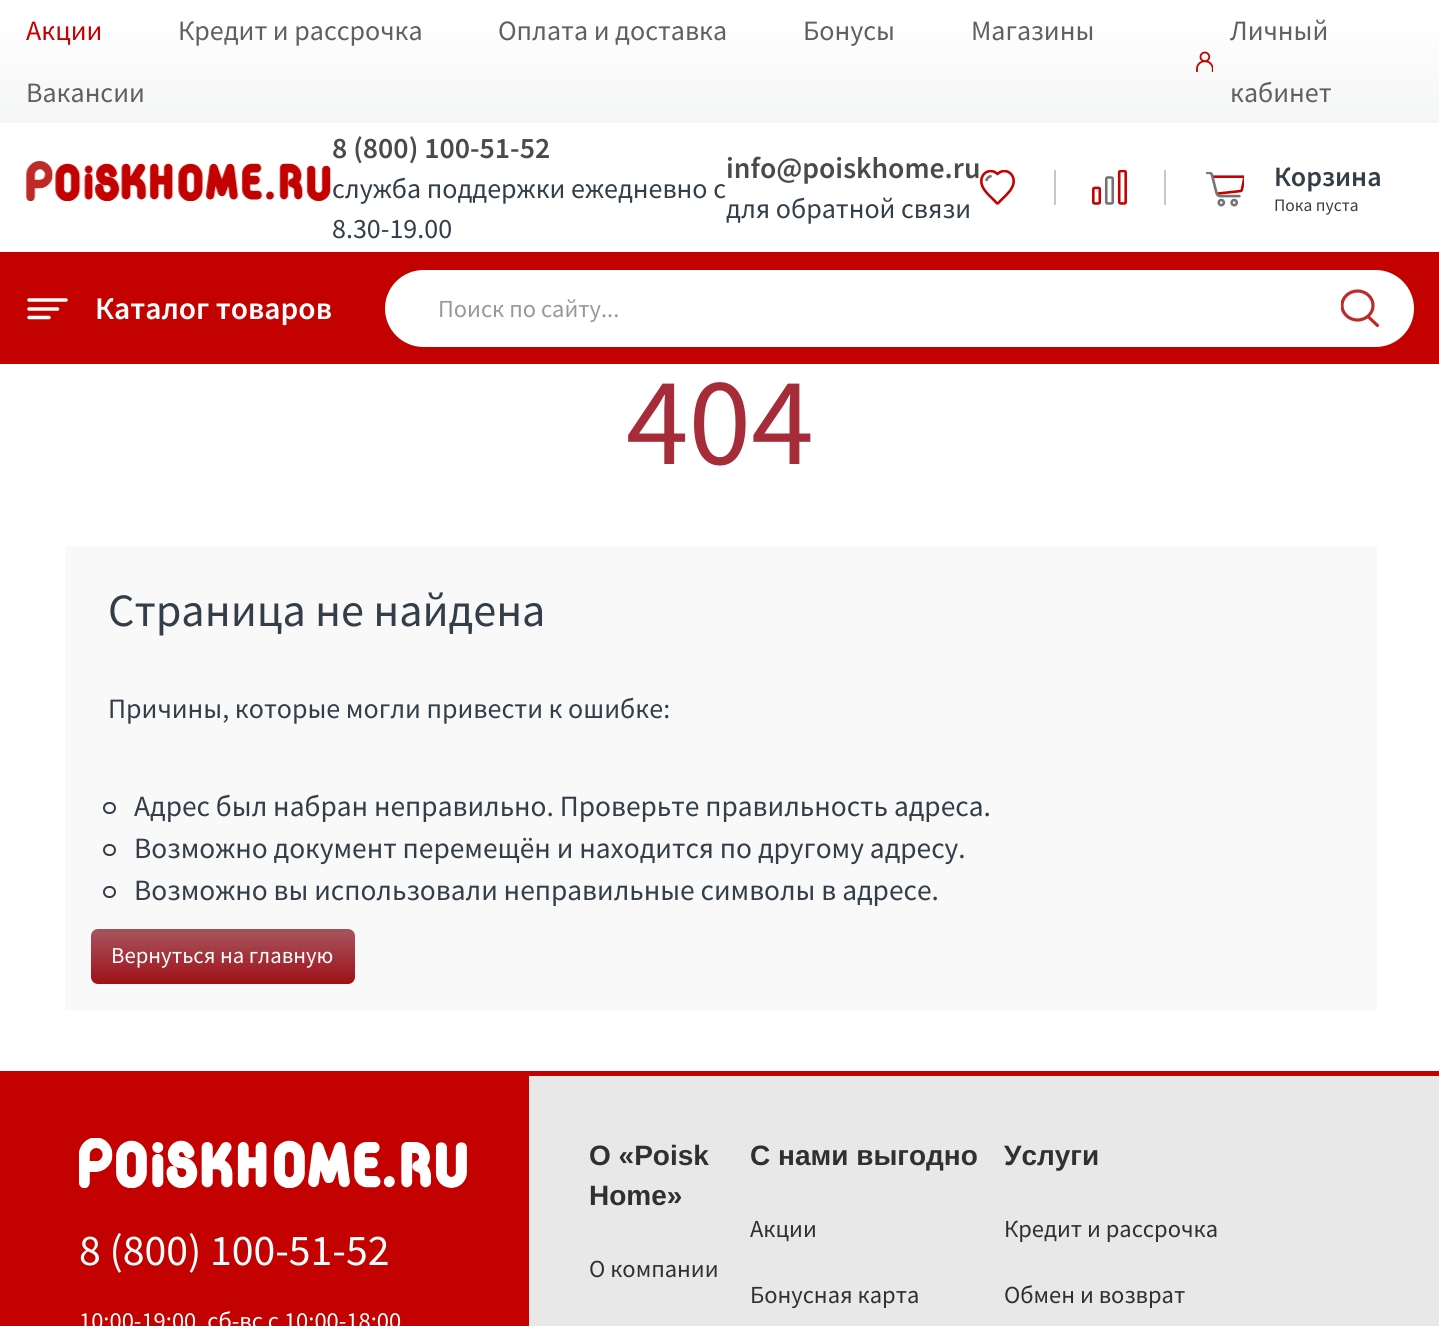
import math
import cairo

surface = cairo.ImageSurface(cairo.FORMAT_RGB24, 1439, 1326)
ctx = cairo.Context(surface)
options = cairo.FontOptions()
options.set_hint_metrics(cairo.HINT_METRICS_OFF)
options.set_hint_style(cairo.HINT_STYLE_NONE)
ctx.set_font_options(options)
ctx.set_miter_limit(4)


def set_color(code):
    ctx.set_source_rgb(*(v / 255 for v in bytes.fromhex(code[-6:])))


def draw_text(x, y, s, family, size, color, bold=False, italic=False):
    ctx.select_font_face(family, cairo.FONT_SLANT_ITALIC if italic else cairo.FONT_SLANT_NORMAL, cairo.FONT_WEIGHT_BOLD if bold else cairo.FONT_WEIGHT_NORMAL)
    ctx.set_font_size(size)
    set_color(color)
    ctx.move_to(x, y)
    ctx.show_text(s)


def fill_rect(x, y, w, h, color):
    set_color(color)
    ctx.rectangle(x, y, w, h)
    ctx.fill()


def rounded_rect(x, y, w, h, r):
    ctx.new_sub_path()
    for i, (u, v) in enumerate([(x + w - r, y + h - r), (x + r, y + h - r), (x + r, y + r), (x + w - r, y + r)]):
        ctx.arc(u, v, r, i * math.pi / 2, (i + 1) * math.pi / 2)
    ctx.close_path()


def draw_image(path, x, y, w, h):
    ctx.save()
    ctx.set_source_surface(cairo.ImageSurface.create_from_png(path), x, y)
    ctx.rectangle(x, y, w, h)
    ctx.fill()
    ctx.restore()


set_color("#ffffff")
ctx.paint()
gradient = cairo.LinearGradient(720, 0, 720, 123)
gradient.add_color_stop_rgba(0, 1, 1, 1, 1)
gradient.add_color_stop_rgba(1, 0.961, 0.969, 0.965, 1)
ctx.set_source(gradient)
ctx.rectangle(0, 31, 1439, 92)
ctx.fill()
draw_text(26, 40, "Акции", "Source Sans Pro", 28, "#c20100")
draw_text(178, 40, "Кредит и рассрочка", "Source Sans Pro", 28, "#606060")
draw_text(498, 40, "Оплата и доставка", "Source Sans Pro", 28, "#606060")
draw_text(803, 40, "Бонусы", "Source Sans Pro", 28, "#606060")
draw_text(971, 40, "Магазины", "Source Sans Pro", 28, "#606060")
draw_text(26, 102, "Вакансии", "Source Sans Pro", 28, "#606060")
draw_image("assets/img1.png", 1196, 51, 17, 21)
draw_text(1230, 40, "Личный", "Source Sans Pro", 28, "#606060")
draw_text(1230, 102, "кабинет", "Source Sans Pro", 28, "#606060")
draw_image("assets/img2.png", 26, 161, 305, 40)
draw_text(332, 158, "8 (800) 100-51-52", "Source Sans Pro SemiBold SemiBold", 29.75, "#4a4a4a")
draw_text(332, 198, "служба поддержки ежедневно с", "Source Sans Pro", 28, "#333e48")
draw_text(332, 238, "8.30-19.00", "Source Sans Pro", 28, "#333e48")
draw_text(726, 178, "info@poiskhome.ru", "Source Sans Pro SemiBold SemiBold", 29.75, "#4a4a4a")
draw_text(726, 218, "для обратной связи", "Source Sans Pro", 28, "#333e48")
draw_image("assets/img3.png", 980, 170, 35, 35)
fill_rect(1054, 170, 2, 35, "#c7c7c7")
draw_image("assets/img4.png", 1092, 170, 35, 35)
fill_rect(1164, 170, 2, 35, "#c7c7c7")
draw_image("assets/img5.png", 1206, 172, 38, 35)
draw_text(1274, 186, "Корзина", "Source Sans Pro SemiBold SemiBold", 28, "#333e48")
draw_text(1274, 211, "Пока пуста", "Source Sans Pro", 17.5, "#333e48")
fill_rect(0, 252, 1439, 112, "#c20100")
ctx.new_path()
ctx.move_to(29, 300)
ctx.line_to(66, 300)
ctx.move_to(29, 309)
ctx.line_to(57.5, 309)
ctx.move_to(29, 317.5)
ctx.line_to(49, 317.5)
set_color("#ffffff")
ctx.set_line_width(3.5)
ctx.set_line_cap(cairo.LINE_CAP_ROUND)
ctx.set_line_join(cairo.LINE_JOIN_ROUND)
ctx.stroke()
draw_text(95, 319, "Каталог товаров", "Source Sans Pro SemiBold SemiBold", 31.5, "#ffffff")
rounded_rect(385, 270, 1029, 77, 38.5)
ctx.fill()
draw_text(438, 317, "Поиск по сайту...", "Source Sans Pro", 24.5, "#989898")
ctx.save()
ctx.rectangle(1341, 289, 38, 38)
ctx.clip()
ctx.new_path()
ctx.move_to(1373, 305.5)
ctx.curve_to(1373, 313.5, 1366, 320, 1357.5, 320)
ctx.curve_to(1349, 320, 1342, 313.5, 1342, 305.5)
ctx.curve_to(1342, 297.5, 1349, 291, 1357.5, 291)
ctx.curve_to(1366, 291, 1373, 297.5, 1373, 305.5)
ctx.close_path()
ctx.move_to(1368, 316.5)
ctx.line_to(1377.5, 325.5)
set_color("#bd2a28")
ctx.set_line_width(3.2)
ctx.set_line_join(cairo.LINE_JOIN_MITER)
ctx.stroke()
ctx.restore()
draw_text(626, 464, "404", "Source Sans Pro", 126, "#a72c39")
fill_rect(65, 546, 1312, 464, "#f9f9f9")
draw_text(108, 626, "Страница не найдена", "Source Sans Pro", 46.25, "#333e48")
draw_text(108, 718, "Причины, которые могли привести к ошибке:", "Source Sans Pro", 28, "#333e48")
rounded_rect(104, 803, 11, 10, 5)
ctx.set_line_width(2)
ctx.set_line_cap(cairo.LINE_CAP_BUTT)
ctx.set_line_join(cairo.LINE_JOIN_MITER)
ctx.stroke()
draw_text(134, 816, "Адрес был набран неправильно. Проверьте правильность адреса.", "Source Sans Pro", 29.4, "#333e48")
rounded_rect(104, 845, 11, 10, 5)
ctx.stroke()
draw_text(134, 858, "Возможно документ перемещён и находится по другому адресу.", "Source Sans Pro", 29.4, "#333e48")
rounded_rect(104, 887, 11, 10, 5)
ctx.stroke()
draw_text(134, 900, "Возможно вы использовали неправильные символы в адресе.", "Source Sans Pro", 29.4, "#333e48")
gradient = cairo.LinearGradient(223, 929, 223, 984)
gradient.add_color_stop_rgba(0.08, 0.647, 0.318, 0.349, 1)
gradient.add_color_stop_rgba(0.99, 0.627, 0.063, 0.098, 1)
ctx.set_source(gradient)
rounded_rect(91, 929, 264, 55, 7)
ctx.fill()
draw_text(111, 963, "Вернуться на главную", "Source Sans Pro", 22.75, "#ffffff")
fill_rect(0, 1071, 1439, 5, "#c20100")
fill_rect(0, 1076, 529, 250, "#c20100")
fill_rect(529, 1076, 910, 250, "#e8e8e8")
draw_image("assets/img6.png", 79, 1138, 388, 50)
draw_text(79, 1265, "8 (800) 100-51-52", "Source Sans Pro", 43.75, "#ffffff")
draw_text(79, 1329, "10:00-19:00, сб-вс с 10:00-18:00", "Source Sans Pro", 24.5, "#ffffff")
draw_text(589, 1165, "О «Poisk", "Liberation Sans", 28, "#303030", bold=True)
draw_text(589, 1205, "Home»", "Liberation Sans", 28, "#303030", bold=True)
draw_text(589, 1277, "О компании", "Source Sans Pro", 24.5, "#303030")
draw_text(750, 1165, "С нами выгодно", "Liberation Sans", 28, "#303030", bold=True)
draw_text(750, 1237, "Акции", "Source Sans Pro", 24.5, "#303030")
draw_text(750, 1303, "Бонусная карта", "Source Sans Pro", 24.5, "#303030")
draw_text(1004, 1165, "Услуги", "Liberation Sans", 28, "#303030", bold=True)
draw_text(1004, 1237, "Кредит и рассрочка", "Source Sans Pro", 24.5, "#303030")
draw_text(1004, 1303, "Обмен и возврат", "Source Sans Pro", 24.5, "#303030")
surface.write_to_png("output.png")
